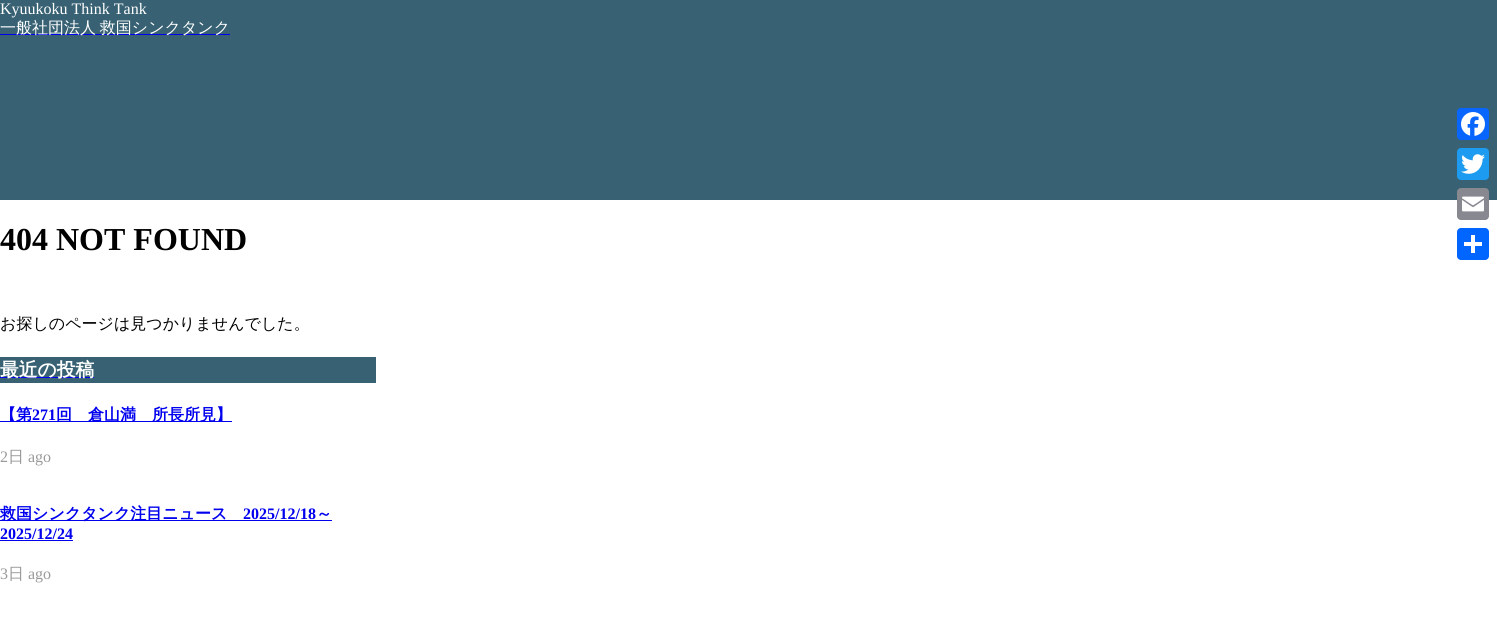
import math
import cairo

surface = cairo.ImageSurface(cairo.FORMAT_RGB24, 1497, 618)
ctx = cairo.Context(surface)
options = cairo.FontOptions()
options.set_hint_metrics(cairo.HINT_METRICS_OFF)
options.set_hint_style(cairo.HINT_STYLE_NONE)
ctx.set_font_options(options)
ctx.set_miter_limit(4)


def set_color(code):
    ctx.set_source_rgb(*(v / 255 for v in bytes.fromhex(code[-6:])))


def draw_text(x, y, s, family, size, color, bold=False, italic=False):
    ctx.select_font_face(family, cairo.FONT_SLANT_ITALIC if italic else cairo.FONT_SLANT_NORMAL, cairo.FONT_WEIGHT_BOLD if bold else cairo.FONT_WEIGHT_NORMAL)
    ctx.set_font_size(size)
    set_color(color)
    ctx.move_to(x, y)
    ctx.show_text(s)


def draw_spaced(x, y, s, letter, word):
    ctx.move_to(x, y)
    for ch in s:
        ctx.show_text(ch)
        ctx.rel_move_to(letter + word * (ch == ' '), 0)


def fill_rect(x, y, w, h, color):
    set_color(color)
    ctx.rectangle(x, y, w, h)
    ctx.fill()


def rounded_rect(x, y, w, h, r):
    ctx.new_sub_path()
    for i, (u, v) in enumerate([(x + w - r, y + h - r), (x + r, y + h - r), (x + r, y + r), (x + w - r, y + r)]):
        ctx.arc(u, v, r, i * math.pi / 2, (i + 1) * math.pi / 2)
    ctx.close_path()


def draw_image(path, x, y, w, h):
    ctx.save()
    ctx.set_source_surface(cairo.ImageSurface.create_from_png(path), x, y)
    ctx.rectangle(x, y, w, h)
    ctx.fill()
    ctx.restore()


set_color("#ffffff")
ctx.paint()
fill_rect(0, 0, 1497, 200, "#386274")
draw_text(0, 14, "Kyuukoku Think Tank", "Liberation Serif", 16, "#ffffff")
fill_rect(0, 34, 230, 1, "#0000ee")
ctx.select_font_face("WenQuanYi Zen Hei Medium")
set_color("#ffffff")
draw_spaced(0, 33, "一般社団法人 救国シンクタンク", 0, -1)
set_color("#0866ff")
rounded_rect(1457, 108, 32, 32, 4)
ctx.fill()
draw_image("assets/img1.png", 1461, 112, 24, 24)
set_color("#1d9bf0")
rounded_rect(1457, 148, 32, 32, 4)
ctx.fill()
draw_image("assets/img2.png", 1461, 154, 24, 20)
set_color("#888990")
rounded_rect(1457, 188, 32, 32, 4)
ctx.fill()
draw_image("assets/img3.png", 1462, 196, 22, 16)
set_color("#0166ff")
rounded_rect(1457, 228, 32, 32, 4)
ctx.fill()
fill_rect(1471, 235, 4, 18, "#ffffff")
fill_rect(1464, 242, 18, 4, "#ffffff")
draw_text(0, 250, "404 NOT FOUND", "Liberation Serif", 32, "#000000", bold=True)
draw_text(0, 329, "お探しのページは見つかりませんでした。", "WenQuanYi Zen Hei Medium", 16, "#000000")
fill_rect(0, 357, 376, 26, "#386274")
fill_rect(0, 377, 94, 1, "#0000ee")
draw_text(0, 376, "最近の投稿", "WenQuanYi Zen Hei", 18.75, "#ffffff", bold=True)
fill_rect(0, 421, 232, 1, "#0000ee")
draw_text(0, 420, "【第", "WenQuanYi Zen Hei", 16, "#0000ee", bold=True)
draw_text(32, 420, "271", "Liberation Serif", 16, "#0000ee", bold=True)
draw_text(56, 420, "回　倉山満　所長所見】", "WenQuanYi Zen Hei", 16, "#0000ee", bold=True)
draw_text(0, 462, "2", "Liberation Serif", 16, "#999999")
draw_text(8, 462, "日", "WenQuanYi Zen Hei Medium", 16, "#999999")
draw_text(28, 462, "ago", "Liberation Serif", 16, "#999999")
fill_rect(0, 520, 332, 1, "#0000ee")
draw_text(0, 519, "救国シンクタンク注目ニュース", "WenQuanYi Zen Hei", 16, "#0000ee", bold=True)
draw_text(243, 519, "2025/12/18", "Liberation Serif", 16, "#0000ee", bold=True)
draw_text(316, 519, "～", "WenQuanYi Zen Hei", 16, "#0000ee", bold=True)
draw_text(0, 539, "2025/12/24", "Liberation Serif", 16, "#0000ee", bold=True)
fill_rect(0, 540, 73, 1, "#0000ee")
draw_text(0, 579, "3", "Liberation Serif", 16, "#999999")
draw_text(8, 579, "日", "WenQuanYi Zen Hei Medium", 16, "#999999")
draw_text(28, 579, "ago", "Liberation Serif", 16, "#999999")
surface.write_to_png("output.png")
